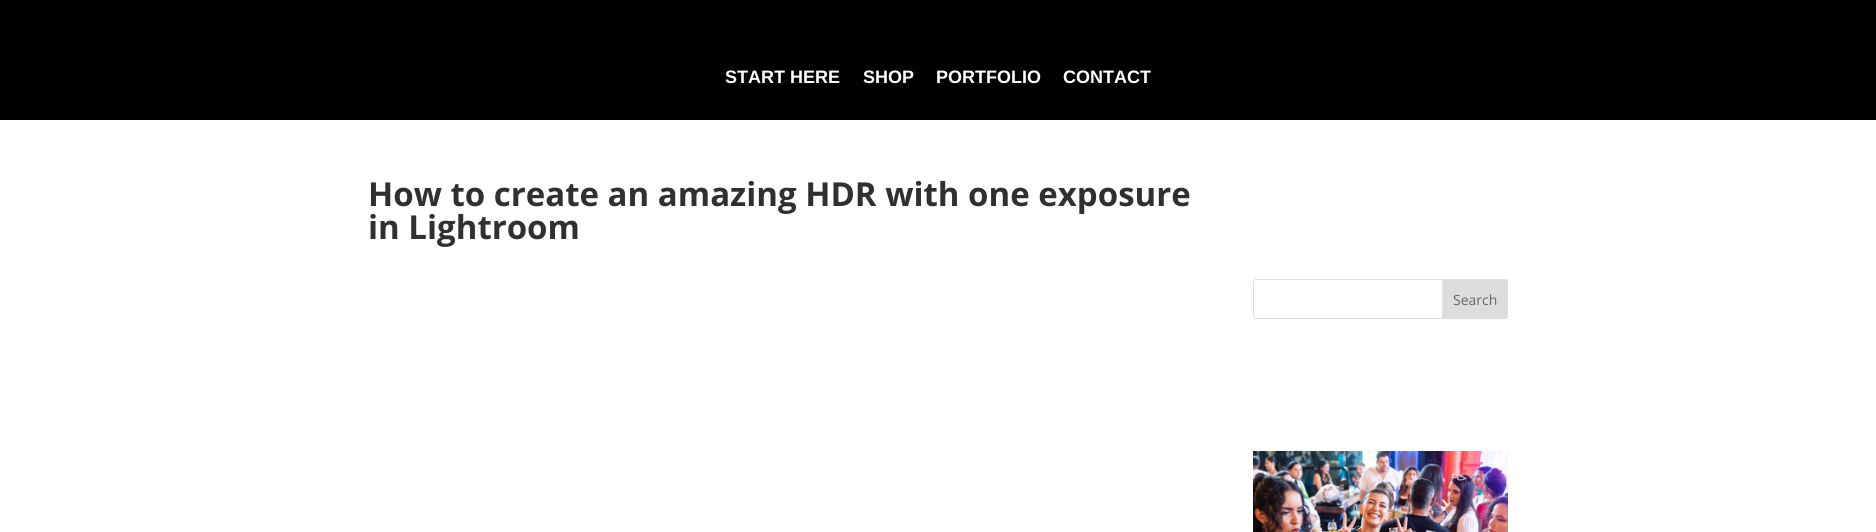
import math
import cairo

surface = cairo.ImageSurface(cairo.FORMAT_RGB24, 1876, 532)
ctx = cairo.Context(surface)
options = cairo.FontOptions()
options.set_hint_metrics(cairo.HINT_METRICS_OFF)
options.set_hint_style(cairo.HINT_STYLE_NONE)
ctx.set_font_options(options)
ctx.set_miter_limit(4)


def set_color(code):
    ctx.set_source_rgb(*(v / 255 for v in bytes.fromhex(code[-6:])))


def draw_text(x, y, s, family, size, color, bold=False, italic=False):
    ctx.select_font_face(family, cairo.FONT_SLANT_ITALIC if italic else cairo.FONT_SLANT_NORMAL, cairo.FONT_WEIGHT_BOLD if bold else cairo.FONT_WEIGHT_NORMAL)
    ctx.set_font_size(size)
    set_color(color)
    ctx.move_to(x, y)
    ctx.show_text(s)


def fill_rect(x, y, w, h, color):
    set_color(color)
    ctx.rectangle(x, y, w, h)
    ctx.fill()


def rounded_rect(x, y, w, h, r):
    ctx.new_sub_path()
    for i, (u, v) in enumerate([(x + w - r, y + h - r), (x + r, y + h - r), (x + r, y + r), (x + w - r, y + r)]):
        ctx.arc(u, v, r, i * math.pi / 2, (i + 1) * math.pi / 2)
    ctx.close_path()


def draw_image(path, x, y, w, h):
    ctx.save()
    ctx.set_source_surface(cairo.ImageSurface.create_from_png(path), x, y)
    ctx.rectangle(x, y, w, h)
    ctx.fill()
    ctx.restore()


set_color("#ffffff")
ctx.paint()
fill_rect(0, 0, 1876, 120, "#000000")
draw_text(725, 83, "START HERE", "Liberation Sans", 18, "#ffffff", bold=True)
draw_text(863, 83, "SHOP", "Liberation Sans", 18, "#ffffff", bold=True)
draw_text(936, 83, "PORTFOLIO", "Liberation Sans", 18, "#ffffff", bold=True)
draw_text(1063, 83, "CONTACT", "Liberation Sans", 18, "#ffffff", bold=True)
draw_text(368, 206, "How to create an amazing HDR with one exposure", "Open Sans", 33, "#303030", bold=True)
draw_text(368, 239, "in Lightroom", "Open Sans", 33, "#303030", bold=True)
rounded_rect(1253.5, 279.5, 254, 39, 2.5)
set_color("#dddddd")
ctx.set_line_width(1)
ctx.stroke()
ctx.new_path()
ctx.move_to(1442.5, 279.5)
ctx.line_to(1505, 279.5)
ctx.curve_to(1506.5, 279.5, 1507.5, 280.5, 1507.5, 282)
ctx.line_to(1507.5, 316)
ctx.curve_to(1507.5, 317.5, 1506.5, 318.5, 1505, 318.5)
ctx.line_to(1442.5, 318.5)
ctx.close_path()
ctx.fill_preserve()
ctx.stroke()
draw_text(1453, 305, "Search", "Open Sans", 14, "#666666")
draw_image("assets/img1.png", 1253, 451, 255, 81)
surface.write_to_png("output.png")
